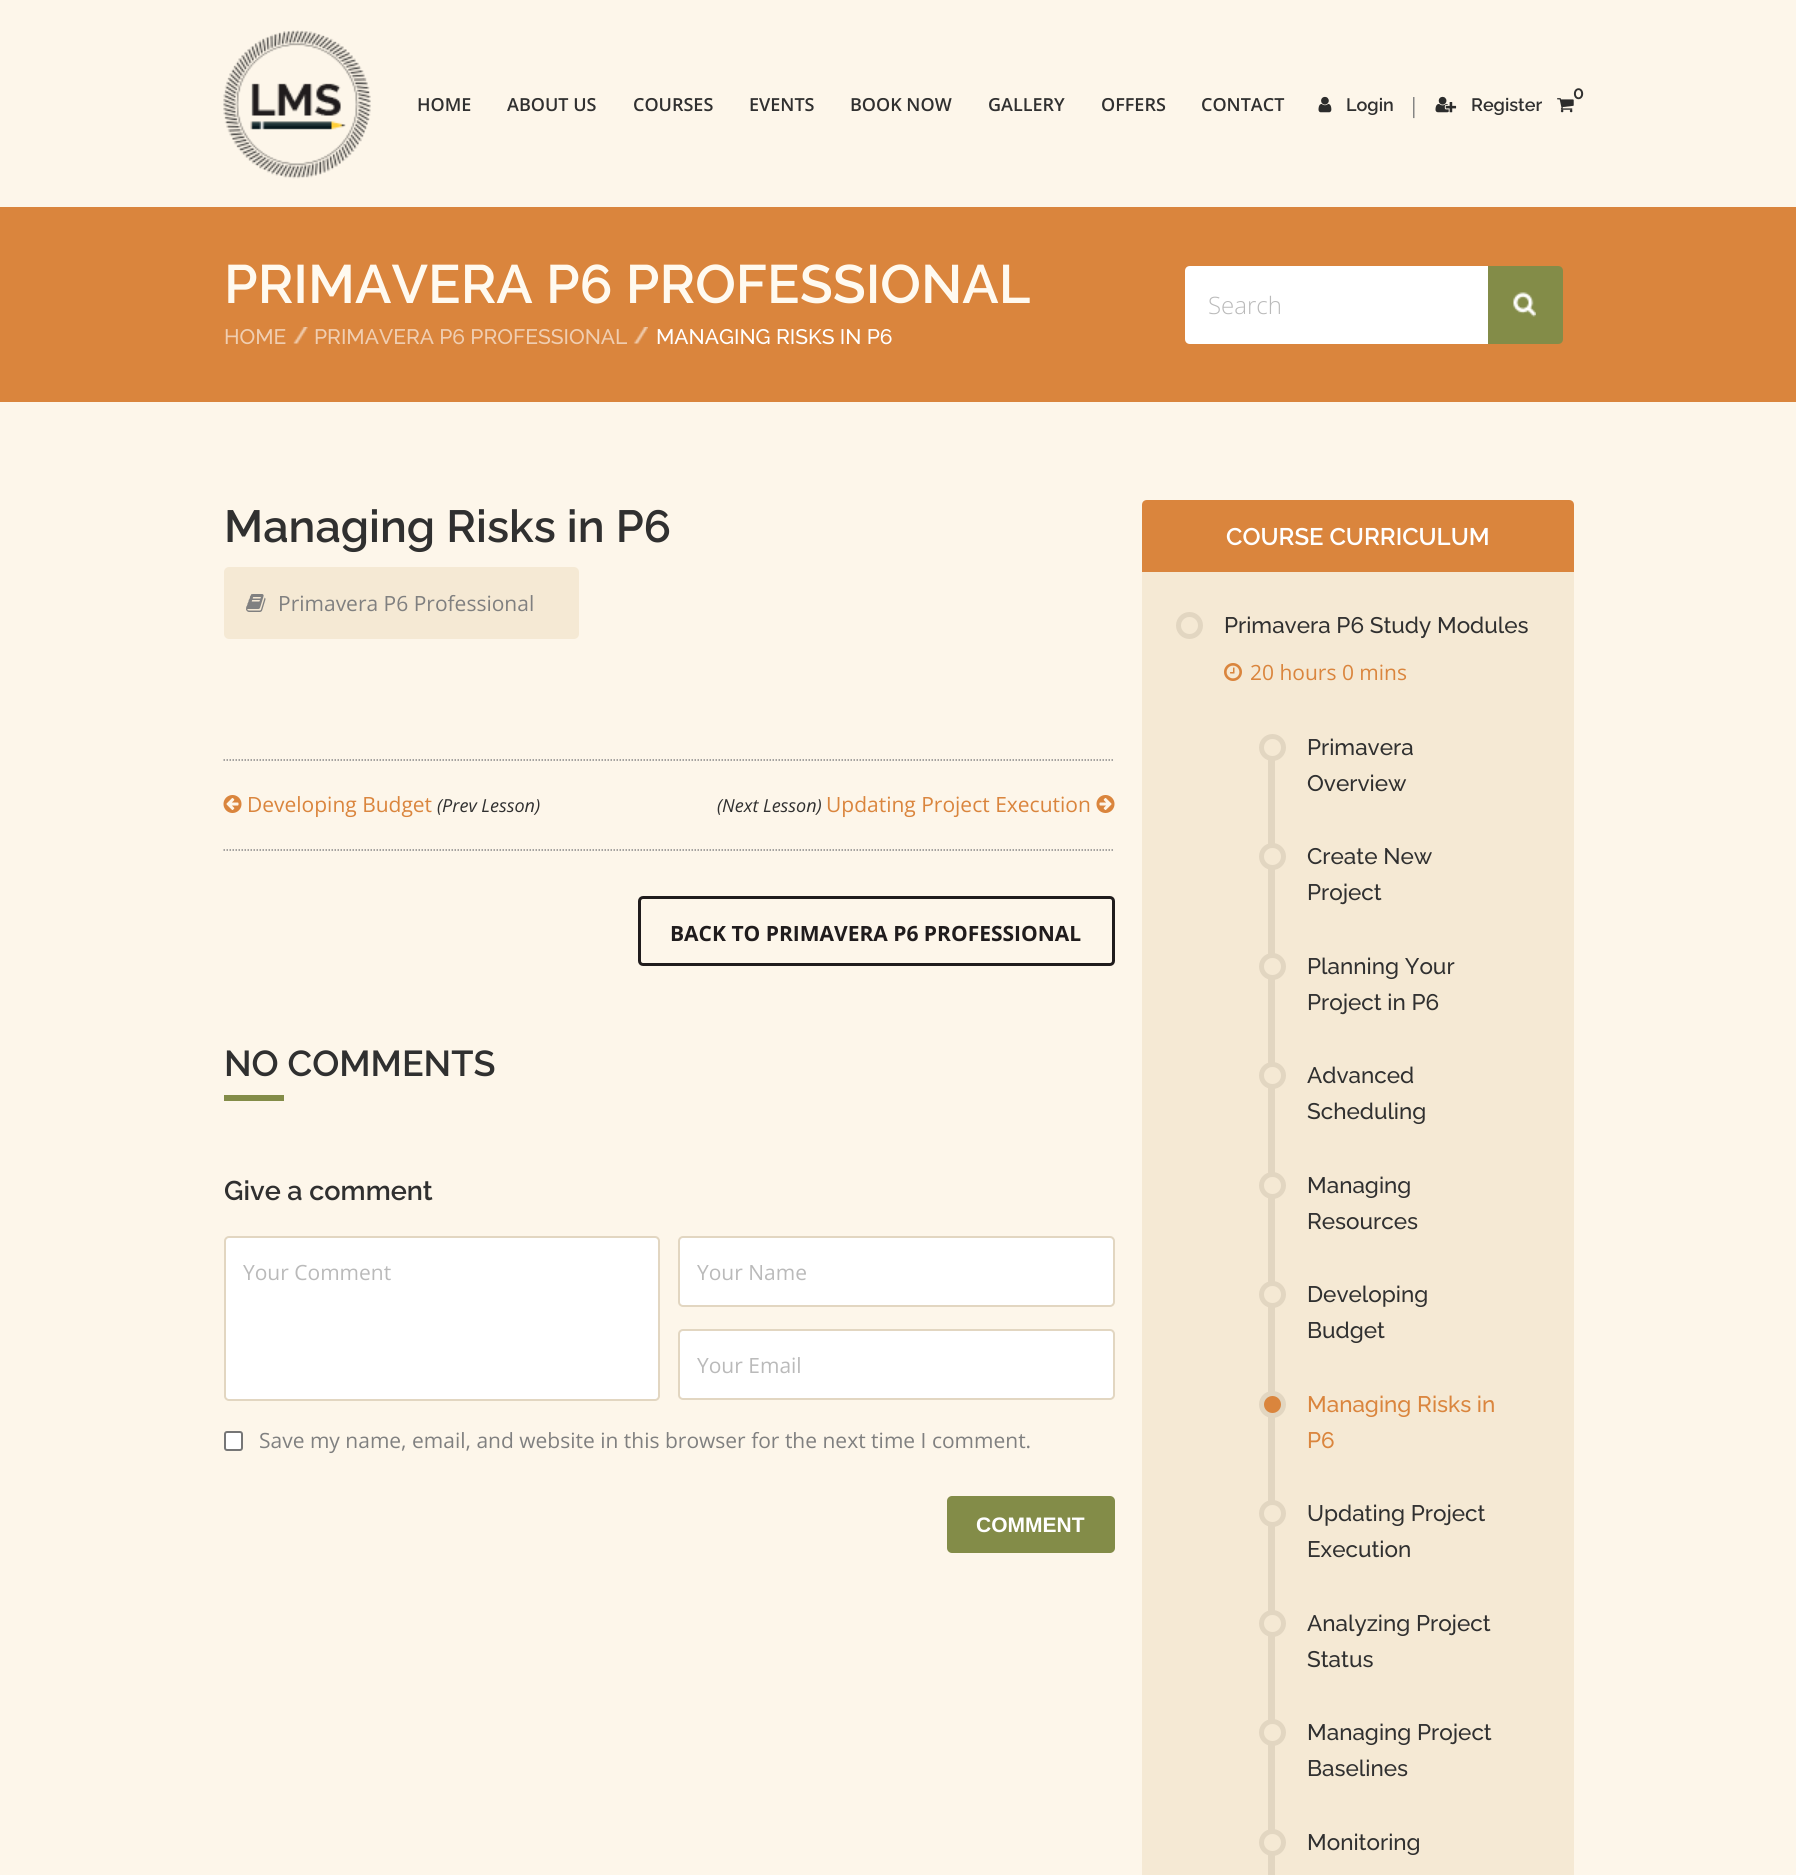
import math
import cairo

surface = cairo.ImageSurface(cairo.FORMAT_RGB24, 1796, 1875)
ctx = cairo.Context(surface)
options = cairo.FontOptions()
options.set_hint_metrics(cairo.HINT_METRICS_OFF)
options.set_hint_style(cairo.HINT_STYLE_NONE)
ctx.set_font_options(options)
ctx.set_miter_limit(4)


def set_color(code):
    ctx.set_source_rgb(*(v / 255 for v in bytes.fromhex(code[-6:])))


def draw_text(x, y, s, family, size, color, bold=False, italic=False):
    ctx.select_font_face(family, cairo.FONT_SLANT_ITALIC if italic else cairo.FONT_SLANT_NORMAL, cairo.FONT_WEIGHT_BOLD if bold else cairo.FONT_WEIGHT_NORMAL)
    ctx.set_font_size(size)
    set_color(color)
    ctx.move_to(x, y)
    ctx.show_text(s)


def fill_rect(x, y, w, h, color):
    set_color(color)
    ctx.rectangle(x, y, w, h)
    ctx.fill()


def rounded_rect(x, y, w, h, r):
    ctx.new_sub_path()
    for i, (u, v) in enumerate([(x + w - r, y + h - r), (x + r, y + h - r), (x + r, y + r), (x + w - r, y + r)]):
        ctx.arc(u, v, r, i * math.pi / 2, (i + 1) * math.pi / 2)
    ctx.close_path()


def draw_image(path, x, y, w, h):
    ctx.save()
    ctx.set_source_surface(cairo.ImageSurface.create_from_png(path), x, y)
    ctx.rectangle(x, y, w, h)
    ctx.fill()
    ctx.restore()


set_color("#fdf6ea")
ctx.paint()
draw_image("assets/img1.png", 223, 30, 148, 149)
draw_text(417, 111, "HOME", "Open Sans SemiBold", 18, "#303030")
draw_text(507, 111, "ABOUT US", "Open Sans SemiBold", 18, "#303030")
draw_text(633, 111, "COURSES", "Open Sans SemiBold", 18, "#303030")
draw_text(749, 111, "EVENTS", "Open Sans SemiBold", 18, "#303030")
draw_text(850, 111, "BOOK NOW", "Open Sans SemiBold", 18, "#303030")
draw_text(988, 111, "GALLERY", "Open Sans SemiBold", 18, "#303030")
draw_text(1101, 111, "OFFERS", "Open Sans SemiBold", 18, "#303030")
draw_text(1201, 111, "CONTACT", "Open Sans SemiBold", 18, "#303030")
draw_image("assets/img2.png", 1557, 98, 17, 15)
draw_text(1573, 99, "0", "Raleway SemiBold", 18, "#303030")
draw_image("assets/img3.png", 1318, 96, 14, 17)
draw_text(1346, 111, "Login", "Raleway SemiBold", 18, "#303030")
draw_text(1408, 113, "|", "Open Sans", 21, "#808080")
draw_image("assets/img4.png", 1435, 96, 22, 17)
draw_text(1471, 111, "Register", "Raleway SemiBold", 18, "#303030")
fill_rect(0, 207, 1796, 195, "#da853d")
draw_text(224, 303, "PRIMAVERA P6 PROFESSIONAL", "Raleway SemiBold", 54, "#fffaf0")
draw_text(224, 344, "HOME", "Raleway Medium", 21, "#f0ceb1")
draw_image("assets/img5.png", 293, 327, 15, 17)
draw_text(314, 344, "PRIMAVERA P6 PROFESSIONAL", "Raleway Medium", 21, "#f0ceb1")
draw_image("assets/img6.png", 633, 327, 15, 17)
draw_text(656, 344, "MANAGING RISKS IN P6", "Raleway Medium", 21, "#ffffff")
ctx.new_path()
ctx.move_to(1190, 266)
ctx.line_to(1488, 266)
ctx.line_to(1488, 344)
ctx.line_to(1190, 344)
ctx.curve_to(1187, 344, 1185, 342, 1185, 339)
ctx.line_to(1185, 271)
ctx.curve_to(1185, 268, 1187, 266, 1190, 266)
ctx.close_path()
ctx.fill()
draw_text(1208, 314, "Search", "Open Sans Light", 24, "#bababa")
set_color("#838c48")
ctx.new_path()
ctx.move_to(1488, 266)
ctx.line_to(1558, 266)
ctx.curve_to(1561, 266, 1563, 268, 1563, 271)
ctx.line_to(1563, 339)
ctx.curve_to(1563, 342, 1561, 344, 1558, 344)
ctx.line_to(1488, 344)
ctx.close_path()
ctx.fill()
draw_image("assets/img7.png", 1513, 292, 23, 25)
draw_text(224, 542, "Managing Risks in P6", "Raleway SemiBold", 45, "#303030")
set_color("#f5e9d4")
rounded_rect(224, 567, 355, 72, 5)
ctx.fill()
draw_image("assets/img8.png", 246, 594, 20, 18)
draw_text(278, 611, "Primavera P6 Professional", "Open Sans", 21, "#808080")
ctx.new_path()
ctx.move_to(223.5, 760)
ctx.line_to(1114.5, 760)
set_color("#888888")
ctx.set_line_width(1.5)
ctx.set_dash([1.5, 1.5])
ctx.stroke()
ctx.new_path()
ctx.move_to(223.5, 850)
ctx.line_to(1114.5, 850)
ctx.stroke()
draw_image("assets/img9.png", 223, 795, 19, 18)
draw_text(247, 812, "Developing Budget", "Open Sans", 21, "#da853d")
draw_text(437, 812, "(Prev Lesson)", "Open Sans", 18, "#303030", italic=True)
draw_text(717, 812, "(Next Lesson)", "Open Sans", 18, "#303030", italic=True)
draw_text(826, 812, "Updating Project Execution", "Open Sans", 21, "#da853d")
draw_image("assets/img10.png", 1096, 795, 19, 18)
rounded_rect(639.5, 897.5, 474, 67, 3.5)
set_color("#201c1d")
ctx.set_line_width(3)
ctx.set_dash([])
ctx.stroke()
draw_text(670, 941, "BACK TO PRIMAVERA P6 PROFESSIONAL", "Open Sans", 21, "#201c1d", bold=True)
draw_text(224, 1076, "NO COMMENTS", "Raleway SemiBold", 36, "#303030")
fill_rect(224, 1095, 60, 6, "#838c48")
draw_text(224, 1200, "Give a comment", "Raleway SemiBold", 27, "#303030")
set_color("#ffffff")
rounded_rect(225, 1237, 434, 163, 4)
ctx.fill_preserve()
set_color("#e2d6c1")
ctx.set_line_width(2)
ctx.stroke()
draw_text(243, 1280, "Your Comment", "Open Sans", 21, "#bababa")
set_color("#ffffff")
rounded_rect(679, 1237, 435, 69, 4)
ctx.fill_preserve()
set_color("#e2d6c1")
ctx.stroke()
draw_text(697, 1280, "Your Name", "Open Sans", 21, "#bababa")
set_color("#ffffff")
rounded_rect(679, 1330, 435, 69, 4)
ctx.fill_preserve()
set_color("#e2d6c1")
ctx.stroke()
draw_text(697, 1373, "Your Email", "Open Sans", 21, "#bababa")
set_color("#ffffff")
rounded_rect(225, 1432, 17, 18, 2)
ctx.fill_preserve()
set_color("#767676")
ctx.stroke()
draw_text(259, 1448, "Save my name, email, and website in this browser for the next time I comment.", "Open Sans", 21, "#808080")
set_color("#838c48")
rounded_rect(947, 1496, 168, 57, 5)
ctx.fill()
draw_text(976, 1532, "COMMENT", "Liberation Sans", 21, "#ffffff", bold=True)
set_color("#da853d")
ctx.new_path()
ctx.move_to(1147, 500)
ctx.line_to(1569, 500)
ctx.curve_to(1572, 500, 1574, 502, 1574, 505)
ctx.line_to(1574, 572)
ctx.line_to(1142, 572)
ctx.line_to(1142, 505)
ctx.curve_to(1142, 502, 1144, 500, 1147, 500)
ctx.close_path()
ctx.fill()
draw_text(1226, 545, "COURSE CURRICULUM", "Raleway SemiBold", 24, "#ffffff")
fill_rect(1142, 572, 432, 1303, "#f5e9d4")
ctx.new_path()
ctx.arc(1189.5, 625.5, 11, 0, 2 * math.pi)
set_color("#e2d6c1")
ctx.set_line_width(5)
ctx.stroke()
draw_text(1224, 633, "Primavera P6 Study Modules", "Raleway Medium", 22.5, "#303030")
draw_image("assets/img11.png", 1224, 663, 18, 18)
draw_text(1250, 680, "20 hours 0 mins", "Open Sans", 21, "#da853d")
fill_rect(1268, 760, 7, 86, "#e2d6c1")
set_color("#f5e9d4")
ctx.new_path()
ctx.arc(1272.5, 747.5, 11, 0, 2 * math.pi)
ctx.fill_preserve()
set_color("#e2d6c1")
ctx.stroke()
draw_text(1307, 755, "Primavera", "Raleway Medium", 22.5, "#303030")
draw_text(1307, 791, "Overview", "Raleway Medium", 22.5, "#303030")
fill_rect(1268, 869, 7, 87, "#e2d6c1")
set_color("#f5e9d4")
ctx.new_path()
ctx.arc(1272.5, 856.5, 11, 0, 2 * math.pi)
ctx.fill_preserve()
set_color("#e2d6c1")
ctx.stroke()
draw_text(1307, 864, "Create New", "Raleway Medium", 22.5, "#303030")
draw_text(1307, 900, "Project", "Raleway Medium", 22.5, "#303030")
fill_rect(1268, 979, 7, 86, "#e2d6c1")
set_color("#f5e9d4")
ctx.new_path()
ctx.arc(1272.5, 966.5, 11, 0, 2 * math.pi)
ctx.fill_preserve()
set_color("#e2d6c1")
ctx.stroke()
draw_text(1307, 974, "Planning Your", "Raleway Medium", 22.5, "#303030")
draw_text(1307, 1010, "Project in P6", "Raleway Medium", 22.5, "#303030")
fill_rect(1268, 1088, 7, 87, "#e2d6c1")
set_color("#f5e9d4")
ctx.new_path()
ctx.arc(1272.5, 1075.5, 11, 0, 2 * math.pi)
ctx.fill_preserve()
set_color("#e2d6c1")
ctx.stroke()
draw_text(1307, 1083, "Advanced", "Raleway Medium", 22.5, "#303030")
draw_text(1307, 1119, "Scheduling", "Raleway Medium", 22.5, "#303030")
fill_rect(1268, 1198, 7, 86, "#e2d6c1")
set_color("#f5e9d4")
ctx.new_path()
ctx.arc(1272.5, 1185.5, 11, 0, 2 * math.pi)
ctx.fill_preserve()
set_color("#e2d6c1")
ctx.stroke()
draw_text(1307, 1193, "Managing", "Raleway Medium", 22.5, "#303030")
draw_text(1307, 1229, "Resources", "Raleway Medium", 22.5, "#303030")
fill_rect(1268, 1307, 7, 87, "#e2d6c1")
set_color("#f5e9d4")
ctx.new_path()
ctx.arc(1272.5, 1294.5, 11, 0, 2 * math.pi)
ctx.fill_preserve()
set_color("#e2d6c1")
ctx.stroke()
draw_text(1307, 1302, "Developing", "Raleway Medium", 22.5, "#303030")
draw_text(1307, 1338, "Budget", "Raleway Medium", 22.5, "#303030")
fill_rect(1268, 1417, 7, 86, "#e2d6c1")
set_color("#da853d")
ctx.new_path()
ctx.arc(1272.5, 1404.5, 11, 0, 2 * math.pi)
ctx.fill_preserve()
set_color("#e2d6c1")
ctx.stroke()
draw_text(1307, 1412, "Managing Risks in", "Raleway Medium", 22.5, "#da853d")
draw_text(1307, 1448, "P6", "Raleway Medium", 22.5, "#da853d")
fill_rect(1268, 1526, 7, 87, "#e2d6c1")
set_color("#f5e9d4")
ctx.new_path()
ctx.arc(1272.5, 1513.5, 11, 0, 2 * math.pi)
ctx.fill_preserve()
set_color("#e2d6c1")
ctx.stroke()
draw_text(1307, 1521, "Updating Project", "Raleway Medium", 22.5, "#303030")
draw_text(1307, 1557, "Execution", "Raleway Medium", 22.5, "#303030")
fill_rect(1268, 1636, 7, 86, "#e2d6c1")
set_color("#f5e9d4")
ctx.new_path()
ctx.arc(1272.5, 1623.5, 11, 0, 2 * math.pi)
ctx.fill_preserve()
set_color("#e2d6c1")
ctx.stroke()
draw_text(1307, 1631, "Analyzing Project", "Raleway Medium", 22.5, "#303030")
draw_text(1307, 1667, "Status", "Raleway Medium", 22.5, "#303030")
fill_rect(1268, 1745, 7, 87, "#e2d6c1")
set_color("#f5e9d4")
ctx.new_path()
ctx.arc(1272.5, 1732.5, 11, 0, 2 * math.pi)
ctx.fill_preserve()
set_color("#e2d6c1")
ctx.stroke()
draw_text(1307, 1740, "Managing Project", "Raleway Medium", 22.5, "#303030")
draw_text(1307, 1776, "Baselines", "Raleway Medium", 22.5, "#303030")
fill_rect(1268, 1855, 7, 20, "#e2d6c1")
set_color("#f5e9d4")
ctx.new_path()
ctx.arc(1272.5, 1842.5, 11, 0, 2 * math.pi)
ctx.fill_preserve()
set_color("#e2d6c1")
ctx.stroke()
draw_text(1307, 1850, "Monitoring", "Raleway Medium", 22.5, "#303030")
surface.write_to_png("output.png")
